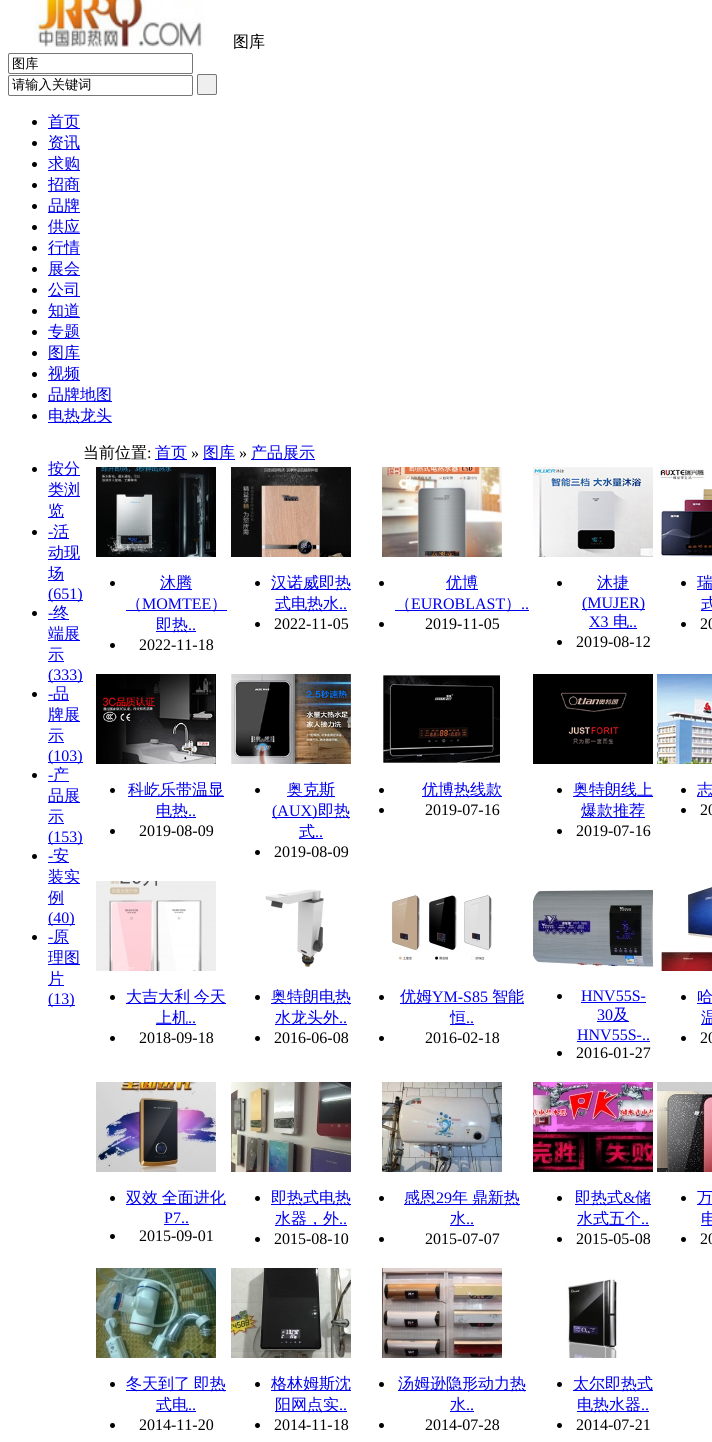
import math
import cairo

surface = cairo.ImageSurface(cairo.FORMAT_RGB24, 712, 1442)
ctx = cairo.Context(surface)
options = cairo.FontOptions()
options.set_hint_metrics(cairo.HINT_METRICS_OFF)
options.set_hint_style(cairo.HINT_STYLE_NONE)
ctx.set_font_options(options)
ctx.set_miter_limit(4)


def set_color(code):
    ctx.set_source_rgb(*(v / 255 for v in bytes.fromhex(code[-6:])))


def draw_text(x, y, s, family, size, color, bold=False, italic=False):
    ctx.select_font_face(family, cairo.FONT_SLANT_ITALIC if italic else cairo.FONT_SLANT_NORMAL, cairo.FONT_WEIGHT_BOLD if bold else cairo.FONT_WEIGHT_NORMAL)
    ctx.set_font_size(size)
    set_color(color)
    ctx.move_to(x, y)
    ctx.show_text(s)


def draw_spaced(x, y, s, letter, word):
    ctx.move_to(x, y)
    for ch in s:
        ctx.show_text(ch)
        ctx.rel_move_to(letter + word * (ch == ' '), 0)


def fill_rect(x, y, w, h, color):
    set_color(color)
    ctx.rectangle(x, y, w, h)
    ctx.fill()


def rounded_rect(x, y, w, h, r):
    ctx.new_sub_path()
    for i, (u, v) in enumerate([(x + w - r, y + h - r), (x + r, y + h - r), (x + r, y + r), (x + w - r, y + r)]):
        ctx.arc(u, v, r, i * math.pi / 2, (i + 1) * math.pi / 2)
    ctx.close_path()


def draw_image(path, x, y, w, h):
    ctx.save()
    ctx.set_source_surface(cairo.ImageSurface.create_from_png(path), x, y)
    ctx.rectangle(x, y, w, h)
    ctx.fill()
    ctx.restore()


set_color("#ffffff")
ctx.paint()
draw_image("assets/img1.png", 34, 0, 171, 47)
draw_text(233, 47, "图库", "WenQuanYi Zen Hei Medium", 16, "#000000")
rounded_rect(8.5, 53.5, 184, 20, 1.5)
set_color("#767676")
ctx.set_line_width(1)
ctx.stroke()
draw_text(12, 68, "图库", "WenQuanYi Zen Hei Medium", 13.25, "#000000")
rounded_rect(8.5, 75.5, 184, 20, 1.5)
set_color("#767676")
ctx.stroke()
draw_text(12, 89, "请输入关键词", "WenQuanYi Zen Hei Medium", 13.25, "#000000")
set_color("#efefef")
rounded_rect(197.5, 74.5, 19, 20, 1.5)
ctx.fill_preserve()
set_color("#767676")
ctx.stroke()
set_color("#000000")
ctx.arc(34.5, 122.5, 2.5, 0, 2 * math.pi)
ctx.fill()
fill_rect(48, 128, 32, 1, "#0000ee")
draw_text(48, 127, "首页", "WenQuanYi Zen Hei Medium", 16, "#0000ee")
set_color("#000000")
ctx.new_path()
ctx.arc(34.5, 143.5, 2.5, 0, 2 * math.pi)
ctx.fill()
fill_rect(48, 149, 32, 1, "#0000ee")
draw_text(48, 148, "资讯", "WenQuanYi Zen Hei Medium", 16, "#0000ee")
set_color("#000000")
ctx.new_path()
ctx.arc(34.5, 164.5, 2.5, 0, 2 * math.pi)
ctx.fill()
fill_rect(48, 170, 32, 1, "#0000ee")
draw_text(48, 169, "求购", "WenQuanYi Zen Hei Medium", 16, "#0000ee")
set_color("#000000")
ctx.new_path()
ctx.arc(34.5, 185.5, 2.5, 0, 2 * math.pi)
ctx.fill()
fill_rect(48, 191, 32, 1, "#0000ee")
draw_text(48, 190, "招商", "WenQuanYi Zen Hei Medium", 16, "#0000ee")
set_color("#000000")
ctx.new_path()
ctx.arc(34.5, 206.5, 2.5, 0, 2 * math.pi)
ctx.fill()
fill_rect(48, 212, 32, 1, "#0000ee")
draw_text(48, 211, "品牌", "WenQuanYi Zen Hei Medium", 16, "#0000ee")
set_color("#000000")
ctx.new_path()
ctx.arc(34.5, 227.5, 2.5, 0, 2 * math.pi)
ctx.fill()
fill_rect(48, 233, 32, 1, "#0000ee")
draw_text(48, 232, "供应", "WenQuanYi Zen Hei Medium", 16, "#0000ee")
set_color("#000000")
ctx.new_path()
ctx.arc(34.5, 248.5, 2.5, 0, 2 * math.pi)
ctx.fill()
fill_rect(48, 254, 32, 1, "#0000ee")
draw_text(48, 253, "行情", "WenQuanYi Zen Hei Medium", 16, "#0000ee")
set_color("#000000")
ctx.new_path()
ctx.arc(34.5, 269.5, 2.5, 0, 2 * math.pi)
ctx.fill()
fill_rect(48, 275, 32, 1, "#0000ee")
draw_text(48, 274, "展会", "WenQuanYi Zen Hei Medium", 16, "#0000ee")
set_color("#000000")
ctx.new_path()
ctx.arc(34.5, 290.5, 2.5, 0, 2 * math.pi)
ctx.fill()
fill_rect(48, 296, 32, 1, "#0000ee")
draw_text(48, 295, "公司", "WenQuanYi Zen Hei Medium", 16, "#0000ee")
set_color("#000000")
ctx.new_path()
ctx.arc(34.5, 311.5, 2.5, 0, 2 * math.pi)
ctx.fill()
fill_rect(48, 317, 32, 1, "#0000ee")
draw_text(48, 316, "知道", "WenQuanYi Zen Hei Medium", 16, "#0000ee")
set_color("#000000")
ctx.new_path()
ctx.arc(34.5, 332.5, 2.5, 0, 2 * math.pi)
ctx.fill()
fill_rect(48, 338, 32, 1, "#0000ee")
draw_text(48, 337, "专题", "WenQuanYi Zen Hei Medium", 16, "#0000ee")
set_color("#000000")
ctx.new_path()
ctx.arc(34.5, 353.5, 2.5, 0, 2 * math.pi)
ctx.fill()
fill_rect(48, 359, 32, 1, "#0000ee")
draw_text(48, 358, "图库", "WenQuanYi Zen Hei Medium", 16, "#0000ee")
set_color("#000000")
ctx.new_path()
ctx.arc(34.5, 374.5, 2.5, 0, 2 * math.pi)
ctx.fill()
fill_rect(48, 380, 32, 1, "#0000ee")
draw_text(48, 379, "视频", "WenQuanYi Zen Hei Medium", 16, "#0000ee")
set_color("#000000")
ctx.new_path()
ctx.arc(34.5, 395.5, 2.5, 0, 2 * math.pi)
ctx.fill()
fill_rect(48, 401, 64, 1, "#0000ee")
draw_text(48, 400, "品牌地图", "WenQuanYi Zen Hei Medium", 16, "#0000ee")
set_color("#000000")
ctx.new_path()
ctx.arc(34.5, 416.5, 2.5, 0, 2 * math.pi)
ctx.fill()
fill_rect(48, 422, 64, 1, "#0000ee")
draw_text(48, 421, "电热龙头", "WenQuanYi Zen Hei Medium", 16, "#0000ee")
set_color("#000000")
ctx.new_path()
ctx.arc(34.5, 469.5, 2.5, 0, 2 * math.pi)
ctx.fill()
fill_rect(48, 475, 32, 1, "#0000ee")
draw_text(48, 474, "按分", "WenQuanYi Zen Hei Medium", 16, "#0000ee")
fill_rect(48, 496, 32, 1, "#0000ee")
draw_text(48, 495, "类浏", "WenQuanYi Zen Hei Medium", 16, "#0000ee")
fill_rect(48, 517, 16, 1, "#0000ee")
draw_text(48, 516, "览", "WenQuanYi Zen Hei Medium", 16, "#0000ee")
set_color("#000000")
ctx.new_path()
ctx.arc(34.5, 532.5, 2.5, 0, 2 * math.pi)
ctx.fill()
draw_text(48, 537, "-", "Liberation Serif", 16, "#0000ee")
fill_rect(48, 538, 21, 1, "#0000ee")
draw_text(53, 537, "活", "WenQuanYi Zen Hei Medium", 16, "#0000ee")
fill_rect(48, 559, 32, 1, "#0000ee")
draw_text(48, 558, "动现", "WenQuanYi Zen Hei Medium", 16, "#0000ee")
fill_rect(48, 580, 16, 1, "#0000ee")
draw_text(48, 579, "场", "WenQuanYi Zen Hei Medium", 16, "#0000ee")
fill_rect(48, 600, 35, 1, "#0000ee")
draw_text(48, 599, "(651)", "Liberation Serif", 16, "#0000ee")
set_color("#000000")
ctx.new_path()
ctx.arc(34.5, 613.5, 2.5, 0, 2 * math.pi)
ctx.fill()
draw_text(48, 618, "-", "Liberation Serif", 16, "#0000ee")
fill_rect(48, 619, 21, 1, "#0000ee")
draw_text(53, 618, "终", "WenQuanYi Zen Hei Medium", 16, "#0000ee")
fill_rect(48, 640, 32, 1, "#0000ee")
draw_text(48, 639, "端展", "WenQuanYi Zen Hei Medium", 16, "#0000ee")
fill_rect(48, 661, 16, 1, "#0000ee")
draw_text(48, 660, "示", "WenQuanYi Zen Hei Medium", 16, "#0000ee")
fill_rect(48, 681, 35, 1, "#0000ee")
draw_text(48, 680, "(333)", "Liberation Serif", 16, "#0000ee")
set_color("#000000")
ctx.new_path()
ctx.arc(34.5, 694.5, 2.5, 0, 2 * math.pi)
ctx.fill()
draw_text(48, 699, "-", "Liberation Serif", 16, "#0000ee")
fill_rect(48, 700, 21, 1, "#0000ee")
draw_text(53, 699, "品", "WenQuanYi Zen Hei Medium", 16, "#0000ee")
fill_rect(48, 721, 32, 1, "#0000ee")
draw_text(48, 720, "牌展", "WenQuanYi Zen Hei Medium", 16, "#0000ee")
fill_rect(48, 742, 16, 1, "#0000ee")
draw_text(48, 741, "示", "WenQuanYi Zen Hei Medium", 16, "#0000ee")
fill_rect(48, 762, 35, 1, "#0000ee")
draw_text(48, 761, "(103)", "Liberation Serif", 16, "#0000ee")
set_color("#000000")
ctx.new_path()
ctx.arc(34.5, 775.5, 2.5, 0, 2 * math.pi)
ctx.fill()
draw_text(48, 780, "-", "Liberation Serif", 16, "#0000ee")
fill_rect(48, 781, 21, 1, "#0000ee")
draw_text(53, 780, "产", "WenQuanYi Zen Hei Medium", 16, "#0000ee")
fill_rect(48, 802, 32, 1, "#0000ee")
draw_text(48, 801, "品展", "WenQuanYi Zen Hei Medium", 16, "#0000ee")
fill_rect(48, 823, 16, 1, "#0000ee")
draw_text(48, 822, "示", "WenQuanYi Zen Hei Medium", 16, "#0000ee")
fill_rect(48, 843, 35, 1, "#0000ee")
draw_text(48, 842, "(153)", "Liberation Serif", 16, "#0000ee")
set_color("#000000")
ctx.new_path()
ctx.arc(34.5, 856.5, 2.5, 0, 2 * math.pi)
ctx.fill()
draw_text(48, 861, "-", "Liberation Serif", 16, "#0000ee")
fill_rect(48, 862, 21, 1, "#0000ee")
draw_text(53, 861, "安", "WenQuanYi Zen Hei Medium", 16, "#0000ee")
fill_rect(48, 883, 32, 1, "#0000ee")
draw_text(48, 882, "装实", "WenQuanYi Zen Hei Medium", 16, "#0000ee")
fill_rect(48, 904, 16, 1, "#0000ee")
draw_text(48, 903, "例", "WenQuanYi Zen Hei Medium", 16, "#0000ee")
fill_rect(48, 924, 27, 1, "#0000ee")
draw_text(48, 923, "(40)", "Liberation Serif", 16, "#0000ee")
set_color("#000000")
ctx.new_path()
ctx.arc(34.5, 937.5, 2.5, 0, 2 * math.pi)
ctx.fill()
draw_text(48, 942, "-", "Liberation Serif", 16, "#0000ee")
fill_rect(48, 943, 21, 1, "#0000ee")
draw_text(53, 942, "原", "WenQuanYi Zen Hei Medium", 16, "#0000ee")
fill_rect(48, 964, 32, 1, "#0000ee")
draw_text(48, 963, "理图", "WenQuanYi Zen Hei Medium", 16, "#0000ee")
fill_rect(48, 985, 16, 1, "#0000ee")
draw_text(48, 984, "片", "WenQuanYi Zen Hei Medium", 16, "#0000ee")
fill_rect(48, 1005, 27, 1, "#0000ee")
draw_text(48, 1004, "(13)", "Liberation Serif", 16, "#0000ee")
draw_text(83, 458, "当前位置", "WenQuanYi Zen Hei Medium", 16, "#000000")
draw_text(147, 458, ":", "Liberation Serif", 16, "#000000")
fill_rect(155, 459, 32, 1, "#0000ee")
draw_text(155, 458, "首页", "WenQuanYi Zen Hei Medium", 16, "#0000ee")
draw_text(191, 458, "»", "Liberation Serif", 16, "#000000")
fill_rect(203, 459, 32, 1, "#0000ee")
draw_text(203, 458, "图库", "WenQuanYi Zen Hei Medium", 16, "#0000ee")
draw_text(239, 458, "»", "Liberation Serif", 16, "#000000")
fill_rect(251, 459, 64, 1, "#0000ee")
draw_text(251, 458, "产品展示", "WenQuanYi Zen Hei Medium", 16, "#0000ee")
draw_image("assets/img2.png", 96, 467, 120, 90)
set_color("#000000")
ctx.arc(112.5, 583.5, 2.5, 0, 2 * math.pi)
ctx.fill()
fill_rect(160, 589, 32, 1, "#0000ee")
draw_text(160, 588, "沐腾", "WenQuanYi Zen Hei Medium", 16, "#0000ee")
fill_rect(126, 610, 101, 1, "#0000ee")
draw_text(126, 609, "（", "WenQuanYi Zen Hei Medium", 16, "#0000ee")
draw_text(142, 609, "MOMTEE", "Liberation Serif", 16, "#0000ee")
draw_text(211, 609, "）", "WenQuanYi Zen Hei Medium", 16, "#0000ee")
fill_rect(156, 631, 40, 1, "#0000ee")
draw_text(156, 630, "即热", "WenQuanYi Zen Hei Medium", 16, "#0000ee")
draw_text(188, 630, "..", "Liberation Serif", 16, "#0000ee")
set_color("#000000")
ctx.new_path()
ctx.arc(112.5, 645.5, 2.5, 0, 2 * math.pi)
ctx.fill()
draw_text(139, 650, "2022-11-18", "Liberation Serif", 16, "#000000")
draw_image("assets/img3.png", 231, 467, 120, 90)
ctx.arc(257.5, 583.5, 2.5, 0, 2 * math.pi)
ctx.fill()
fill_rect(271, 589, 80, 1, "#0000ee")
draw_text(271, 588, "汉诺威即热", "WenQuanYi Zen Hei Medium", 16, "#0000ee")
fill_rect(275, 610, 72, 1, "#0000ee")
draw_text(275, 609, "式电热水", "WenQuanYi Zen Hei Medium", 16, "#0000ee")
draw_text(339, 609, "..", "Liberation Serif", 16, "#0000ee")
set_color("#000000")
ctx.new_path()
ctx.arc(257.5, 624.5, 2.5, 0, 2 * math.pi)
ctx.fill()
draw_text(274, 629, "2022-11-05", "Liberation Serif", 16, "#000000")
draw_image("assets/img4.png", 382, 467, 120, 90)
ctx.arc(381.5, 583.5, 2.5, 0, 2 * math.pi)
ctx.fill()
fill_rect(446, 589, 32, 1, "#0000ee")
draw_text(446, 588, "优博", "WenQuanYi Zen Hei Medium", 16, "#0000ee")
fill_rect(395, 610, 134, 1, "#0000ee")
draw_text(395, 609, "（", "WenQuanYi Zen Hei Medium", 16, "#0000ee")
draw_text(411, 609, "EUROBLAST", "Liberation Serif", 16, "#0000ee")
draw_text(505, 609, "）", "WenQuanYi Zen Hei Medium", 16, "#0000ee")
draw_text(521, 609, "..", "Liberation Serif", 16, "#0000ee")
set_color("#000000")
ctx.new_path()
ctx.arc(381.5, 624.5, 2.5, 0, 2 * math.pi)
ctx.fill()
draw_text(425, 629, "2019-11-05", "Liberation Serif", 16, "#000000")
draw_image("assets/img5.png", 533, 467, 120, 90)
ctx.arc(559.5, 583.5, 2.5, 0, 2 * math.pi)
ctx.fill()
fill_rect(597, 589, 32, 1, "#0000ee")
draw_text(597, 588, "沐捷", "WenQuanYi Zen Hei Medium", 16, "#0000ee")
fill_rect(582, 609, 63, 1, "#0000ee")
draw_text(582, 608, "(MUJER)", "Liberation Serif", 16, "#0000ee")
draw_text(589, 627, "X3", "Liberation Serif", 16, "#0000ee")
fill_rect(589, 628, 48, 1, "#0000ee")
draw_text(613, 627, "电", "WenQuanYi Zen Hei Medium", 16, "#0000ee")
draw_text(629, 627, "..", "Liberation Serif", 16, "#0000ee")
set_color("#000000")
ctx.new_path()
ctx.arc(559.5, 642.5, 2.5, 0, 2 * math.pi)
ctx.fill()
draw_text(576, 647, "2019-08-12", "Liberation Serif", 16, "#000000")
draw_image("assets/img6.png", 658, 467, 54, 90)
ctx.arc(683.5, 583.5, 2.5, 0, 2 * math.pi)
ctx.fill()
fill_rect(697, 589, 15, 1, "#0000ee")
draw_text(697, 588, "瑞", "WenQuanYi Zen Hei Medium", 16, "#0000ee")
fill_rect(701, 610, 11, 1, "#0000ee")
draw_text(701, 609, "式", "WenQuanYi Zen Hei Medium", 16, "#0000ee")
set_color("#000000")
ctx.new_path()
ctx.arc(683.5, 624.5, 2.5, 0, 2 * math.pi)
ctx.fill()
draw_text(700, 629, "20", "Liberation Serif", 16, "#000000")
draw_image("assets/img7.png", 96, 674, 120, 90)
ctx.arc(112.5, 790.5, 2.5, 0, 2 * math.pi)
ctx.fill()
fill_rect(128, 796, 96, 1, "#0000ee")
draw_text(128, 795, "科屹乐带温显", "WenQuanYi Zen Hei Medium", 16, "#0000ee")
fill_rect(156, 817, 40, 1, "#0000ee")
draw_text(156, 816, "电热", "WenQuanYi Zen Hei Medium", 16, "#0000ee")
draw_text(188, 816, "..", "Liberation Serif", 16, "#0000ee")
set_color("#000000")
ctx.new_path()
ctx.arc(112.5, 831.5, 2.5, 0, 2 * math.pi)
ctx.fill()
draw_text(139, 836, "2019-08-09", "Liberation Serif", 16, "#000000")
draw_image("assets/img8.png", 231, 674, 120, 90)
ctx.arc(257.5, 790.5, 2.5, 0, 2 * math.pi)
ctx.fill()
fill_rect(287, 796, 48, 1, "#0000ee")
draw_text(287, 795, "奥克斯", "WenQuanYi Zen Hei Medium", 16, "#0000ee")
fill_rect(272, 817, 78, 1, "#0000ee")
draw_text(272, 816, "(AUX)", "Liberation Serif", 16, "#0000ee")
draw_text(318, 816, "即热", "WenQuanYi Zen Hei Medium", 16, "#0000ee")
fill_rect(299, 838, 24, 1, "#0000ee")
draw_text(299, 837, "式", "WenQuanYi Zen Hei Medium", 16, "#0000ee")
draw_text(315, 837, "..", "Liberation Serif", 16, "#0000ee")
set_color("#000000")
ctx.new_path()
ctx.arc(257.5, 852.5, 2.5, 0, 2 * math.pi)
ctx.fill()
draw_text(274, 857, "2019-08-09", "Liberation Serif", 16, "#000000")
draw_image("assets/img9.png", 383, 675, 117, 88)
ctx.arc(381.5, 790.5, 2.5, 0, 2 * math.pi)
ctx.fill()
fill_rect(422, 796, 80, 1, "#0000ee")
draw_text(422, 795, "优博热线款", "WenQuanYi Zen Hei Medium", 16, "#0000ee")
set_color("#000000")
ctx.new_path()
ctx.arc(381.5, 810.5, 2.5, 0, 2 * math.pi)
ctx.fill()
draw_text(425, 815, "2019-07-16", "Liberation Serif", 16, "#000000")
draw_image("assets/img10.png", 533, 674, 120, 90)
ctx.arc(559.5, 790.5, 2.5, 0, 2 * math.pi)
ctx.fill()
fill_rect(573, 796, 80, 1, "#0000ee")
draw_text(573, 795, "奥特朗线上", "WenQuanYi Zen Hei Medium", 16, "#0000ee")
fill_rect(581, 817, 64, 1, "#0000ee")
draw_text(581, 816, "爆款推荐", "WenQuanYi Zen Hei Medium", 16, "#0000ee")
set_color("#000000")
ctx.new_path()
ctx.arc(559.5, 831.5, 2.5, 0, 2 * math.pi)
ctx.fill()
draw_text(576, 836, "2019-07-16", "Liberation Serif", 16, "#000000")
draw_image("assets/img11.png", 657, 674, 55, 90)
ctx.arc(683.5, 790.5, 2.5, 0, 2 * math.pi)
ctx.fill()
fill_rect(697, 796, 15, 1, "#0000ee")
draw_text(697, 795, "志", "WenQuanYi Zen Hei Medium", 16, "#0000ee")
set_color("#000000")
ctx.new_path()
ctx.arc(683.5, 810.5, 2.5, 0, 2 * math.pi)
ctx.fill()
draw_text(700, 815, "20", "Liberation Serif", 16, "#000000")
draw_image("assets/img12.png", 96, 881, 120, 90)
ctx.arc(112.5, 997.5, 2.5, 0, 2 * math.pi)
ctx.fill()
fill_rect(126, 1003, 100, 1, "#0000ee")
ctx.select_font_face("WenQuanYi Zen Hei Medium")
draw_spaced(126, 1002, "大吉大利 今天", 0, -1)
fill_rect(156, 1024, 40, 1, "#0000ee")
draw_text(156, 1023, "上机", "WenQuanYi Zen Hei Medium", 16, "#0000ee")
draw_text(188, 1023, "..", "Liberation Serif", 16, "#0000ee")
set_color("#000000")
ctx.new_path()
ctx.arc(112.5, 1038.5, 2.5, 0, 2 * math.pi)
ctx.fill()
draw_text(139, 1043, "2018-09-18", "Liberation Serif", 16, "#000000")
draw_image("assets/img13.png", 265, 889, 59, 78)
ctx.arc(257.5, 997.5, 2.5, 0, 2 * math.pi)
ctx.fill()
fill_rect(271, 1003, 80, 1, "#0000ee")
draw_text(271, 1002, "奥特朗电热", "WenQuanYi Zen Hei Medium", 16, "#0000ee")
fill_rect(275, 1024, 72, 1, "#0000ee")
draw_text(275, 1023, "水龙头外", "WenQuanYi Zen Hei Medium", 16, "#0000ee")
draw_text(339, 1023, "..", "Liberation Serif", 16, "#0000ee")
set_color("#000000")
ctx.new_path()
ctx.arc(257.5, 1038.5, 2.5, 0, 2 * math.pi)
ctx.fill()
draw_text(274, 1043, "2016-06-08", "Liberation Serif", 16, "#000000")
draw_image("assets/img14.png", 391, 894, 101, 67)
ctx.arc(381.5, 997.5, 2.5, 0, 2 * math.pi)
ctx.fill()
fill_rect(400, 1003, 124, 1, "#0000ee")
draw_text(400, 1002, "优姆", "WenQuanYi Zen Hei Medium", 16, "#0000ee")
draw_text(432, 1002, "YM-S85", "Liberation Serif", 16, "#0000ee")
draw_text(492, 1002, "智能", "WenQuanYi Zen Hei Medium", 16, "#0000ee")
fill_rect(450, 1024, 24, 1, "#0000ee")
draw_text(450, 1023, "恒", "WenQuanYi Zen Hei Medium", 16, "#0000ee")
draw_text(466, 1023, "..", "Liberation Serif", 16, "#0000ee")
set_color("#000000")
ctx.new_path()
ctx.arc(381.5, 1038.5, 2.5, 0, 2 * math.pi)
ctx.fill()
draw_text(425, 1043, "2016-02-18", "Liberation Serif", 16, "#000000")
draw_image("assets/img15.png", 533, 889, 120, 78)
ctx.arc(559.5, 996.5, 2.5, 0, 2 * math.pi)
ctx.fill()
draw_text(581, 1001, "HNV55S-", "Liberation Serif", 16, "#0000ee")
fill_rect(581, 1002, 65, 1, "#0000ee")
draw_text(597, 1020, "30", "Liberation Serif", 16, "#0000ee")
fill_rect(597, 1021, 32, 1, "#0000ee")
draw_text(613, 1020, "及", "WenQuanYi Zen Hei Medium", 16, "#0000ee")
draw_text(577, 1040, "HNV55S-..", "Liberation Serif", 16, "#0000ee")
fill_rect(577, 1041, 73, 1, "#0000ee")
set_color("#000000")
ctx.new_path()
ctx.arc(559.5, 1053.5, 2.5, 0, 2 * math.pi)
ctx.fill()
draw_text(576, 1058, "2016-01-27", "Liberation Serif", 16, "#000000")
draw_image("assets/img16.png", 660, 887, 52, 84)
ctx.arc(683.5, 997.5, 2.5, 0, 2 * math.pi)
ctx.fill()
fill_rect(697, 1003, 15, 1, "#0000ee")
draw_text(697, 1002, "哈", "WenQuanYi Zen Hei Medium", 16, "#0000ee")
fill_rect(701, 1024, 11, 1, "#0000ee")
draw_text(701, 1023, "温", "WenQuanYi Zen Hei Medium", 16, "#0000ee")
set_color("#000000")
ctx.new_path()
ctx.arc(683.5, 1038.5, 2.5, 0, 2 * math.pi)
ctx.fill()
draw_text(700, 1043, "20", "Liberation Serif", 16, "#000000")
draw_image("assets/img17.png", 96, 1082, 120, 90)
ctx.arc(112.5, 1198.5, 2.5, 0, 2 * math.pi)
ctx.fill()
fill_rect(126, 1204, 100, 1, "#0000ee")
ctx.select_font_face("WenQuanYi Zen Hei Medium")
draw_spaced(126, 1203, "双效 全面进化", 0, -1)
draw_text(164, 1223, "P7..", "Liberation Serif", 16, "#0000ee")
fill_rect(164, 1224, 25, 1, "#0000ee")
set_color("#000000")
ctx.new_path()
ctx.arc(112.5, 1236.5, 2.5, 0, 2 * math.pi)
ctx.fill()
draw_text(139, 1241, "2015-09-01", "Liberation Serif", 16, "#000000")
draw_image("assets/img18.png", 231, 1082, 120, 90)
ctx.arc(257.5, 1198.5, 2.5, 0, 2 * math.pi)
ctx.fill()
fill_rect(271, 1204, 80, 1, "#0000ee")
draw_text(271, 1203, "即热式电热", "WenQuanYi Zen Hei Medium", 16, "#0000ee")
fill_rect(275, 1225, 72, 1, "#0000ee")
draw_text(275, 1224, "水器，外", "WenQuanYi Zen Hei Medium", 16, "#0000ee")
draw_text(339, 1224, "..", "Liberation Serif", 16, "#0000ee")
set_color("#000000")
ctx.new_path()
ctx.arc(257.5, 1239.5, 2.5, 0, 2 * math.pi)
ctx.fill()
draw_text(274, 1244, "2015-08-10", "Liberation Serif", 16, "#000000")
draw_image("assets/img19.png", 382, 1082, 120, 90)
ctx.arc(381.5, 1198.5, 2.5, 0, 2 * math.pi)
ctx.fill()
fill_rect(404, 1204, 116, 1, "#0000ee")
draw_text(404, 1203, "感恩", "WenQuanYi Zen Hei Medium", 16, "#0000ee")
draw_text(436, 1203, "29", "Liberation Serif", 16, "#0000ee")
ctx.select_font_face("WenQuanYi Zen Hei Medium")
draw_spaced(452, 1203, "年 鼎新热", 0, -1)
fill_rect(450, 1225, 24, 1, "#0000ee")
draw_text(450, 1224, "水", "WenQuanYi Zen Hei Medium", 16, "#0000ee")
draw_text(466, 1224, "..", "Liberation Serif", 16, "#0000ee")
set_color("#000000")
ctx.new_path()
ctx.arc(381.5, 1239.5, 2.5, 0, 2 * math.pi)
ctx.fill()
draw_text(425, 1244, "2015-07-07", "Liberation Serif", 16, "#000000")
draw_image("assets/img20.png", 533, 1082, 120, 90)
ctx.arc(559.5, 1198.5, 2.5, 0, 2 * math.pi)
ctx.fill()
fill_rect(575, 1204, 76, 1, "#0000ee")
draw_text(575, 1203, "即热式", "WenQuanYi Zen Hei Medium", 16, "#0000ee")
draw_text(623, 1203, "&", "Liberation Serif", 16, "#0000ee")
draw_text(635, 1203, "储", "WenQuanYi Zen Hei Medium", 16, "#0000ee")
fill_rect(577, 1225, 72, 1, "#0000ee")
draw_text(577, 1224, "水式五个", "WenQuanYi Zen Hei Medium", 16, "#0000ee")
draw_text(641, 1224, "..", "Liberation Serif", 16, "#0000ee")
set_color("#000000")
ctx.new_path()
ctx.arc(559.5, 1239.5, 2.5, 0, 2 * math.pi)
ctx.fill()
draw_text(576, 1244, "2015-05-08", "Liberation Serif", 16, "#000000")
draw_image("assets/img21.png", 657, 1082, 55, 90)
ctx.arc(683.5, 1198.5, 2.5, 0, 2 * math.pi)
ctx.fill()
fill_rect(697, 1204, 15, 1, "#0000ee")
draw_text(697, 1203, "万", "WenQuanYi Zen Hei Medium", 16, "#0000ee")
fill_rect(701, 1225, 11, 1, "#0000ee")
draw_text(701, 1224, "电", "WenQuanYi Zen Hei Medium", 16, "#0000ee")
set_color("#000000")
ctx.new_path()
ctx.arc(683.5, 1239.5, 2.5, 0, 2 * math.pi)
ctx.fill()
draw_text(700, 1244, "20", "Liberation Serif", 16, "#000000")
draw_image("assets/img22.png", 96, 1268, 120, 90)
ctx.arc(112.5, 1384.5, 2.5, 0, 2 * math.pi)
ctx.fill()
fill_rect(126, 1390, 100, 1, "#0000ee")
ctx.select_font_face("WenQuanYi Zen Hei Medium")
draw_spaced(126, 1389, "冬天到了 即热", 0, -1)
fill_rect(156, 1411, 40, 1, "#0000ee")
draw_text(156, 1410, "式电", "WenQuanYi Zen Hei Medium", 16, "#0000ee")
draw_text(188, 1410, "..", "Liberation Serif", 16, "#0000ee")
set_color("#000000")
ctx.new_path()
ctx.arc(112.5, 1425.5, 2.5, 0, 2 * math.pi)
ctx.fill()
draw_text(139, 1430, "2014-11-20", "Liberation Serif", 16, "#000000")
draw_image("assets/img23.png", 231, 1268, 120, 90)
ctx.arc(257.5, 1384.5, 2.5, 0, 2 * math.pi)
ctx.fill()
fill_rect(271, 1390, 80, 1, "#0000ee")
draw_text(271, 1389, "格林姆斯沈", "WenQuanYi Zen Hei Medium", 16, "#0000ee")
fill_rect(275, 1411, 72, 1, "#0000ee")
draw_text(275, 1410, "阳网点实", "WenQuanYi Zen Hei Medium", 16, "#0000ee")
draw_text(339, 1410, "..", "Liberation Serif", 16, "#0000ee")
set_color("#000000")
ctx.new_path()
ctx.arc(257.5, 1425.5, 2.5, 0, 2 * math.pi)
ctx.fill()
draw_text(274, 1430, "2014-11-18", "Liberation Serif", 16, "#000000")
draw_image("assets/img24.png", 382, 1268, 120, 90)
ctx.arc(381.5, 1384.5, 2.5, 0, 2 * math.pi)
ctx.fill()
fill_rect(398, 1390, 128, 1, "#0000ee")
draw_text(398, 1389, "汤姆逊隐形动力热", "WenQuanYi Zen Hei Medium", 16, "#0000ee")
fill_rect(450, 1411, 24, 1, "#0000ee")
draw_text(450, 1410, "水", "WenQuanYi Zen Hei Medium", 16, "#0000ee")
draw_text(466, 1410, "..", "Liberation Serif", 16, "#0000ee")
set_color("#000000")
ctx.new_path()
ctx.arc(381.5, 1425.5, 2.5, 0, 2 * math.pi)
ctx.fill()
draw_text(425, 1430, "2014-07-28", "Liberation Serif", 16, "#000000")
draw_image("assets/img25.png", 567, 1278, 51, 80)
ctx.arc(559.5, 1384.5, 2.5, 0, 2 * math.pi)
ctx.fill()
fill_rect(573, 1390, 80, 1, "#0000ee")
draw_text(573, 1389, "太尔即热式", "WenQuanYi Zen Hei Medium", 16, "#0000ee")
fill_rect(577, 1411, 72, 1, "#0000ee")
draw_text(577, 1410, "电热水器", "WenQuanYi Zen Hei Medium", 16, "#0000ee")
draw_text(641, 1410, "..", "Liberation Serif", 16, "#0000ee")
set_color("#000000")
ctx.new_path()
ctx.arc(559.5, 1425.5, 2.5, 0, 2 * math.pi)
ctx.fill()
draw_text(576, 1430, "2014-07-21", "Liberation Serif", 16, "#000000")
surface.write_to_png("output.png")
